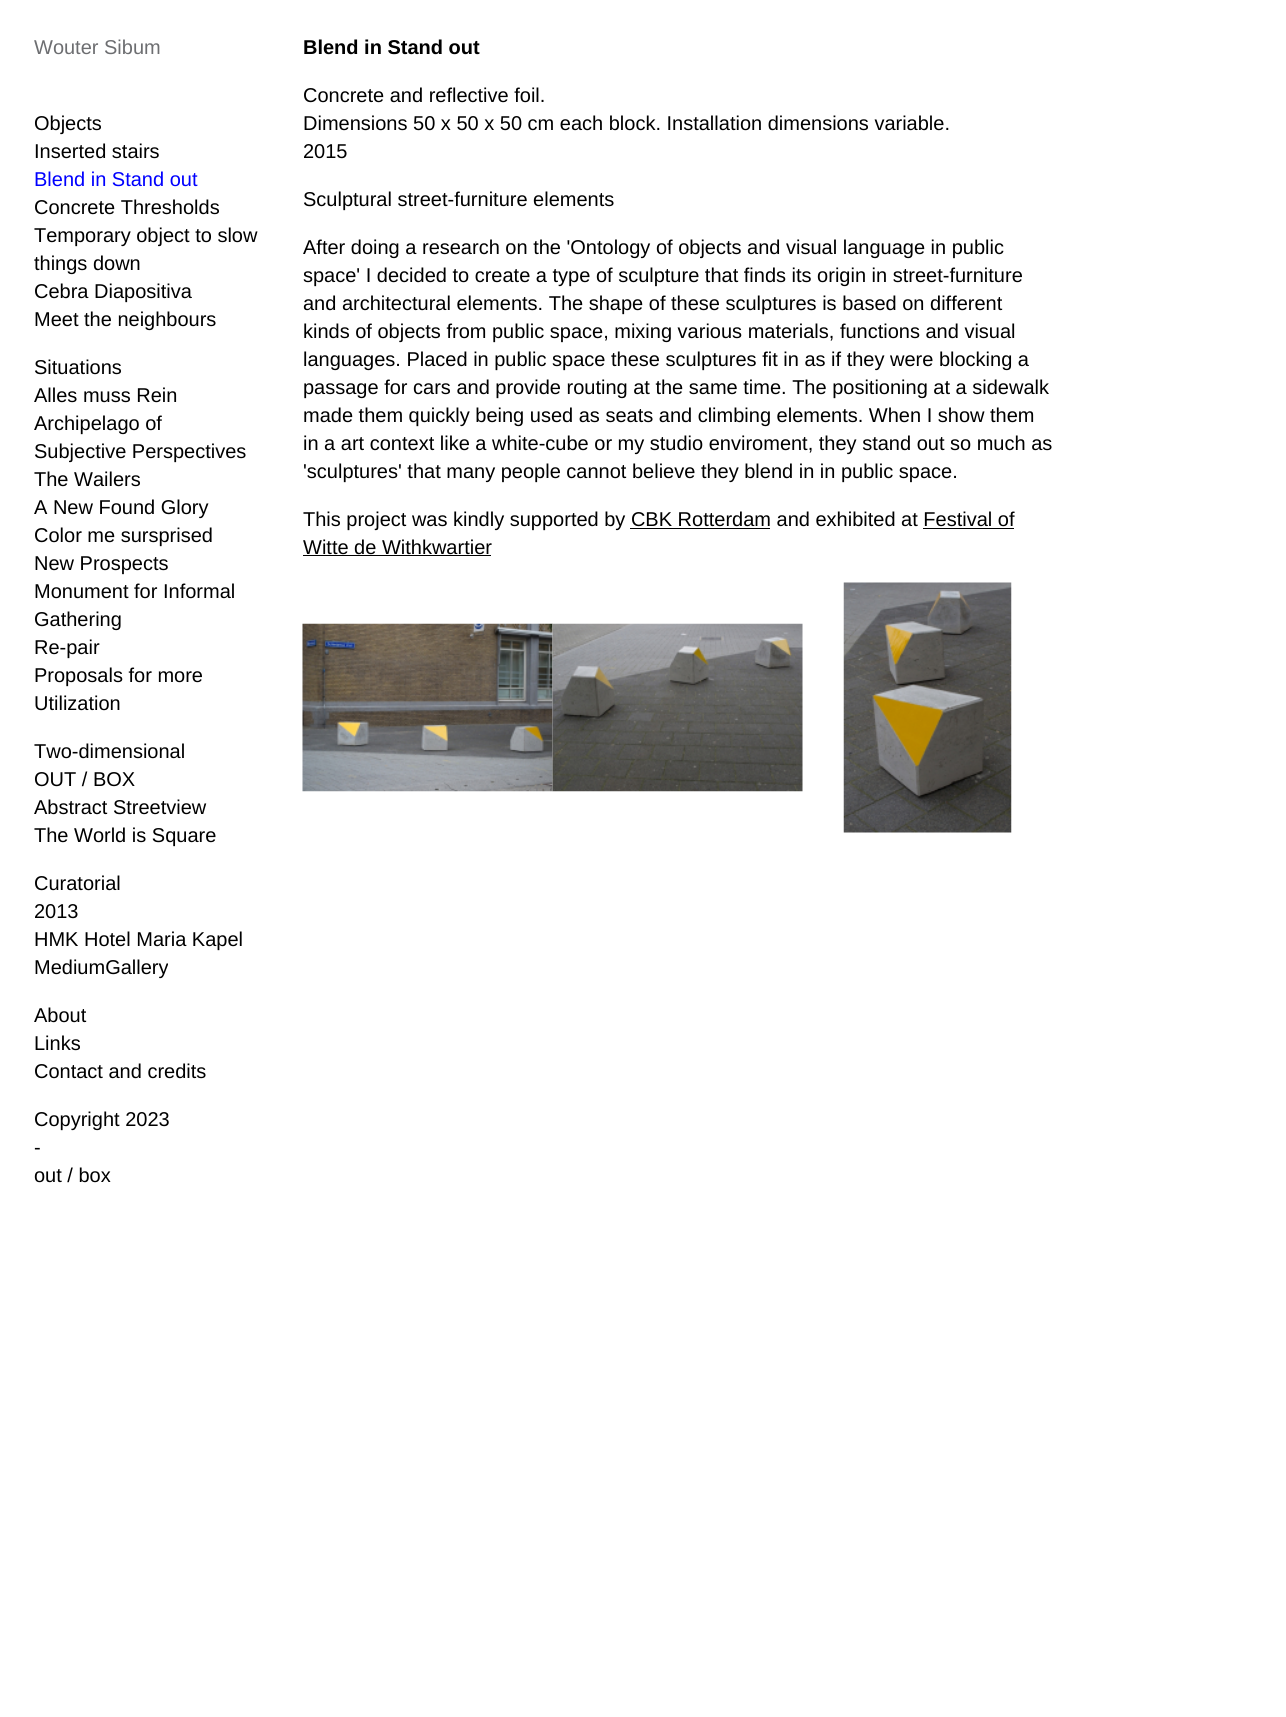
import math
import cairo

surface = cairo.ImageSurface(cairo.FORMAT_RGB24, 1286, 1717)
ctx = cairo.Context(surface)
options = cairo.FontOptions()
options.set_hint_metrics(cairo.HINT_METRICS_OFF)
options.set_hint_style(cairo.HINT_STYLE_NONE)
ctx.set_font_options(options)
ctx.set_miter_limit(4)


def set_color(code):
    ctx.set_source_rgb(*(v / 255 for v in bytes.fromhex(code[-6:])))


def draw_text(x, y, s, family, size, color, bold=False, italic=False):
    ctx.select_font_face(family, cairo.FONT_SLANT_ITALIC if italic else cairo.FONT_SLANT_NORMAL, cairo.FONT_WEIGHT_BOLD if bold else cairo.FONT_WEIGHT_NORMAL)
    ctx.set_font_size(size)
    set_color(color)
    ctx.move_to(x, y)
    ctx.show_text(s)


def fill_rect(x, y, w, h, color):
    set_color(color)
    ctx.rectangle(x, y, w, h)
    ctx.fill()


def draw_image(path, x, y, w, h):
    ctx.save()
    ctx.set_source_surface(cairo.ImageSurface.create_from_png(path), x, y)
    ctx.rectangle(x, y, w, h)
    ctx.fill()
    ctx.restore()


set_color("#ffffff")
ctx.paint()
draw_text(34, 54, "Wouter Sibum", "Liberation Sans", 20, "#6d6e71")
draw_text(34, 130, "Objects", "Liberation Sans", 20, "#000000")
draw_text(34, 158, "Inserted stairs", "Liberation Sans", 20, "#000000")
draw_text(34, 186, "Blend in Stand out", "Liberation Sans", 20, "#0000ff")
draw_text(34, 214, "Concrete Thresholds", "Liberation Sans", 20, "#000000")
draw_text(34, 242, "Temporary object to slow", "Liberation Sans", 20, "#000000")
draw_text(34, 270, "things down", "Liberation Sans", 20, "#000000")
draw_text(34, 298, "Cebra Diapositiva", "Liberation Sans", 20, "#000000")
draw_text(34, 326, "Meet the neighbours", "Liberation Sans", 20, "#000000")
draw_text(34, 374, "Situations", "Liberation Sans", 20, "#000000")
draw_text(34, 402, "Alles muss Rein", "Liberation Sans", 20, "#000000")
draw_text(34, 430, "Archipelago of", "Liberation Sans", 20, "#000000")
draw_text(34, 458, "Subjective Perspectives", "Liberation Sans", 20, "#000000")
draw_text(34, 486, "The Wailers", "Liberation Sans", 20, "#000000")
draw_text(34, 514, "A New Found Glory", "Liberation Sans", 20, "#000000")
draw_text(34, 542, "Color me sursprised", "Liberation Sans", 20, "#000000")
draw_text(34, 570, "New Prospects", "Liberation Sans", 20, "#000000")
draw_text(34, 598, "Monument for Informal", "Liberation Sans", 20, "#000000")
draw_text(34, 626, "Gathering", "Liberation Sans", 20, "#000000")
draw_text(34, 654, "Re-pair", "Liberation Sans", 20, "#000000")
draw_text(34, 682, "Proposals for more", "Liberation Sans", 20, "#000000")
draw_text(34, 710, "Utilization", "Liberation Sans", 20, "#000000")
draw_text(34, 758, "Two-dimensional", "Liberation Sans", 20, "#000000")
draw_text(34, 786, "OUT / BOX", "Liberation Sans", 20, "#000000")
draw_text(34, 814, "Abstract Streetview", "Liberation Sans", 20, "#000000")
draw_text(34, 842, "The World is Square", "Liberation Sans", 20, "#000000")
draw_text(34, 890, "Curatorial", "Liberation Sans", 20, "#000000")
draw_text(34, 918, "2013", "Liberation Sans", 20, "#000000")
draw_text(34, 946, "HMK Hotel Maria Kapel", "Liberation Sans", 20, "#000000")
draw_text(34, 974, "MediumGallery", "Liberation Sans", 20, "#000000")
draw_text(34, 1022, "About", "Liberation Sans", 20, "#000000")
draw_text(34, 1050, "Links", "Liberation Sans", 20, "#000000")
draw_text(34, 1078, "Contact and credits", "Liberation Sans", 20, "#000000")
draw_text(34, 1126, "Copyright 2023", "Liberation Sans", 20, "#000000")
draw_text(34, 1154, "-", "Liberation Sans", 20, "#000000")
draw_text(34, 1182, "out / box", "Liberation Sans", 20, "#000000")
draw_text(303, 54, "Blend in Stand out", "Liberation Sans", 20, "#000000", bold=True)
draw_text(303, 102, "Concrete and reflective foil.", "Liberation Sans", 20, "#000000")
draw_text(303, 130, "Dimensions 50 x 50 x 50 cm each block. Installation dimensions variable.", "Liberation Sans", 20, "#000000")
draw_text(303, 158, "2015", "Liberation Sans", 20, "#000000")
draw_text(303, 206, "Sculptural street-furniture elements", "Liberation Sans", 20, "#000000")
draw_text(303, 254, "After doing a research on the 'Ontology of objects and visual language in public", "Liberation Sans", 20, "#000000")
draw_text(303, 282, "space' I decided to create a type of sculpture that finds its origin in street-furniture", "Liberation Sans", 20, "#000000")
draw_text(303, 310, "and architectural elements. The shape of these sculptures is based on different", "Liberation Sans", 20, "#000000")
draw_text(303, 338, "kinds of objects from public space, mixing various materials, functions and visual", "Liberation Sans", 20, "#000000")
draw_text(303, 366, "languages. Placed in public space these sculptures fit in as if they were blocking a", "Liberation Sans", 20, "#000000")
draw_text(303, 394, "passage for cars and provide routing at the same time. The positioning at a sidewalk", "Liberation Sans", 20, "#000000")
draw_text(303, 422, "made them quickly being used as seats and climbing elements. When I show them", "Liberation Sans", 20, "#000000")
draw_text(303, 450, "in a art context like a white-cube or my studio enviroment, they stand out so much as", "Liberation Sans", 20, "#000000")
draw_text(303, 478, "'sculptures' that many people cannot believe they blend in in public space.", "Liberation Sans", 20, "#000000")
draw_text(303, 526, "This project was kindly supported by CBK Rotterdam and exhibited at Festival of", "Liberation Sans", 20, "#000000")
fill_rect(630, 528, 140, 1, "#000000")
draw_text(303, 554, "Witte de Withkwartier", "Liberation Sans", 20, "#000000")
fill_rect(923, 528, 91, 1, "#000000")
fill_rect(303, 555, 188, 1, "#000000")
draw_image("assets/img1.png", 302, 623, 251, 169)
draw_image("assets/img2.png", 552, 623, 251, 169)
draw_image("assets/img3.png", 843, 582, 169, 251)
surface.write_to_png("output.png")
